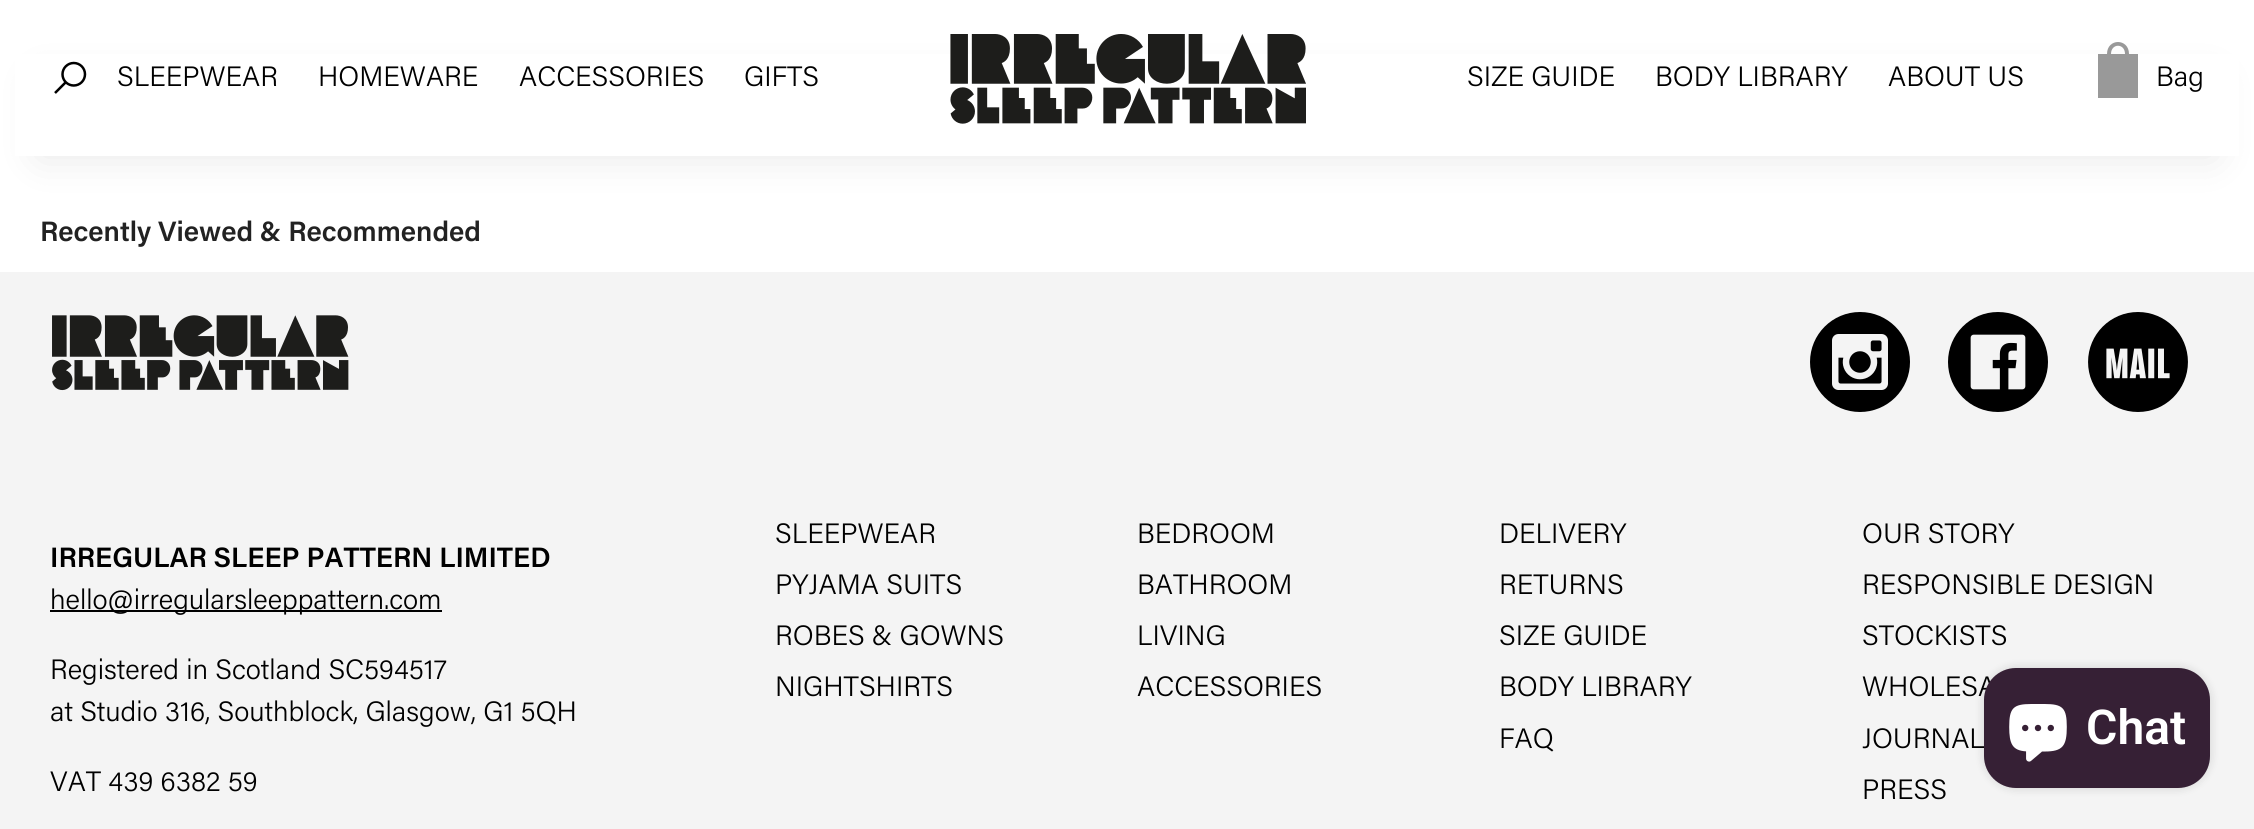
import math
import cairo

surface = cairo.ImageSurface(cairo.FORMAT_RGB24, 2254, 829)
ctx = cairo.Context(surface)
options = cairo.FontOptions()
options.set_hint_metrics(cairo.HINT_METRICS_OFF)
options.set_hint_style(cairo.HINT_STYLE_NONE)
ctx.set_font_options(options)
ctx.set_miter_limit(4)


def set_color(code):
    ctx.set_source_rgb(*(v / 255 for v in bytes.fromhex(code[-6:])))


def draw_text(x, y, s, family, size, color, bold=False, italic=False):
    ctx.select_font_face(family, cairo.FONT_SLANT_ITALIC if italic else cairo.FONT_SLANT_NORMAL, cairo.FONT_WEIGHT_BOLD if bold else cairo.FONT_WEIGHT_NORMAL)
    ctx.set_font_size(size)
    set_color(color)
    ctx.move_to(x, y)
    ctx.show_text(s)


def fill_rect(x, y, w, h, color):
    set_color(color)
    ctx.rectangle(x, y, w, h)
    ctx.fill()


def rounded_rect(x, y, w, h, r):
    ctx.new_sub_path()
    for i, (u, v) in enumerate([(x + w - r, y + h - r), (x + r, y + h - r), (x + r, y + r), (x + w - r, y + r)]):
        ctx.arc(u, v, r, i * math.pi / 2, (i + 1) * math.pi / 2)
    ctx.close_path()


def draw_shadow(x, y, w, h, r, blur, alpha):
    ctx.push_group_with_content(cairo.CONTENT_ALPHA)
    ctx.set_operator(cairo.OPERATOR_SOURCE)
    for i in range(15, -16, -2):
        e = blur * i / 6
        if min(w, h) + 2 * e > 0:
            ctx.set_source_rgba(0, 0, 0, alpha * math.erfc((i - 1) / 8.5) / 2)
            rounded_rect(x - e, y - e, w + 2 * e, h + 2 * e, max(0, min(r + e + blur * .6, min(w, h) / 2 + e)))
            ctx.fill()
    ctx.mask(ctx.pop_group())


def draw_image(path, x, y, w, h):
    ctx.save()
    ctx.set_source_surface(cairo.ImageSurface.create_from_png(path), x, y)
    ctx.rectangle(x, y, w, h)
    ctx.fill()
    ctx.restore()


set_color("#ffffff")
ctx.paint()
set_color("#000000")
draw_shadow(40, 80, 2174, 76, 0, 20, 0.1)
fill_rect(15, 54, 2224, 102, "#ffffff")
draw_image("assets/img1.png", 54, 61, 33, 33)
draw_text(117, 86, "SLEEPWEAR", "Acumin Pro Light", 28, "#000000")
draw_text(318, 86, "HOMEWARE", "Acumin Pro Light", 28, "#000000")
draw_text(519, 86, "ACCESSORIES", "Acumin Pro Light", 28, "#000000")
draw_text(744, 86, "GIFTS", "Acumin Pro Light", 28, "#000000")
draw_text(1467, 86, "SIZE GUIDE", "Acumin Pro Light", 28, "#000000")
draw_text(1655, 86, "BODY LIBRARY", "Acumin Pro Light", 28, "#000000")
draw_text(1888, 86, "ABOUT US", "Acumin Pro Light", 28, "#000000")
draw_image("assets/img2.png", 950, 34, 356, 90)
set_color("#999999")
ctx.new_path()
ctx.move_to(2129, 54)
ctx.curve_to(2129, 38, 2107, 38, 2107, 54)
ctx.line_to(2098, 54)
ctx.line_to(2098, 98)
ctx.line_to(2138, 98)
ctx.line_to(2138, 54)
ctx.close_path()
ctx.move_to(2111, 54)
ctx.curve_to(2111, 43, 2125, 43, 2125, 54)
ctx.close_path()
ctx.fill()
draw_text(2156, 86, "Bag", "Acumin Pro Light", 28, "#000000")
draw_text(40, 241, "Recently Viewed & Recommended", "Acumin Pro SemiBold", 28, "#222222")
fill_rect(0, 272, 2254, 557, "#f4f4f4")
draw_image("assets/img3.png", 52, 315, 297, 76)
draw_image("assets/img4.png", 1810, 312, 100, 100)
draw_image("assets/img5.png", 1948, 312, 100, 100)
draw_image("assets/img6.png", 2088, 312, 100, 100)
draw_text(50, 567, "IRREGULAR SLEEP PATTERN LIMITED", "Acumin Pro SemiBold", 28, "#000000")
fill_rect(50, 610, 392, 2, "#000000")
draw_text(50, 609, "hello@irregularsleeppattern.com", "Acumin Pro Light", 28, "#000000")
draw_text(50, 679, "Registered in Scotland SC594517", "Acumin Pro Light", 28, "#000000")
draw_text(50, 721, "at Studio 316, Southblock, Glasgow, G1 5QH", "Acumin Pro Light", 28, "#000000")
draw_text(50, 791, "VAT 439 6382 59", "Acumin Pro Light", 28, "#000000")
draw_text(775, 543, "SLEEPWEAR", "Acumin Pro Light", 28, "#000000")
draw_text(775, 594, "PYJAMA SUITS", "Acumin Pro Light", 28, "#000000")
draw_text(775, 645, "ROBES & GOWNS", "Acumin Pro Light", 28, "#000000")
draw_text(775, 696, "NIGHTSHIRTS", "Acumin Pro Light", 28, "#000000")
draw_text(1137, 543, "BEDROOM", "Acumin Pro Light", 28, "#000000")
draw_text(1137, 594, "BATHROOM", "Acumin Pro Light", 28, "#000000")
draw_text(1137, 645, "LIVING", "Acumin Pro Light", 28, "#000000")
draw_text(1137, 696, "ACCESSORIES", "Acumin Pro Light", 28, "#000000")
draw_text(1499, 543, "DELIVERY", "Acumin Pro Light", 28, "#000000")
draw_text(1499, 594, "RETURNS", "Acumin Pro Light", 28, "#000000")
draw_text(1499, 645, "SIZE GUIDE", "Acumin Pro Light", 28, "#000000")
draw_text(1499, 696, "BODY LIBRARY", "Acumin Pro Light", 28, "#000000")
draw_text(1499, 748, "FAQ", "Acumin Pro Light", 28, "#000000")
draw_text(1862, 543, "OUR STORY", "Acumin Pro Light", 28, "#000000")
draw_text(1862, 594, "RESPONSIBLE DESIGN", "Acumin Pro Light", 28, "#000000")
draw_text(1862, 645, "STOCKISTS", "Acumin Pro Light", 28, "#000000")
draw_text(1862, 696, "WHOLESA", "Acumin Pro Light", 28, "#000000")
draw_text(1862, 748, "JOURNAL", "Acumin Pro Light", 28, "#000000")
draw_text(1862, 799, "PRESS", "Acumin Pro Light", 28, "#000000")
set_color("#000000")
draw_shadow(1984, 668, 226, 120, 32, 5, 0.15)
set_color("#362035")
rounded_rect(1984, 668, 226, 120, 32)
ctx.fill()
draw_image("assets/img7.png", 2009, 704, 58, 58)
draw_text(2086, 744, "Chat", "Roboto SemiBold", 48, "#ffffff")
surface.write_to_png("output.png")
